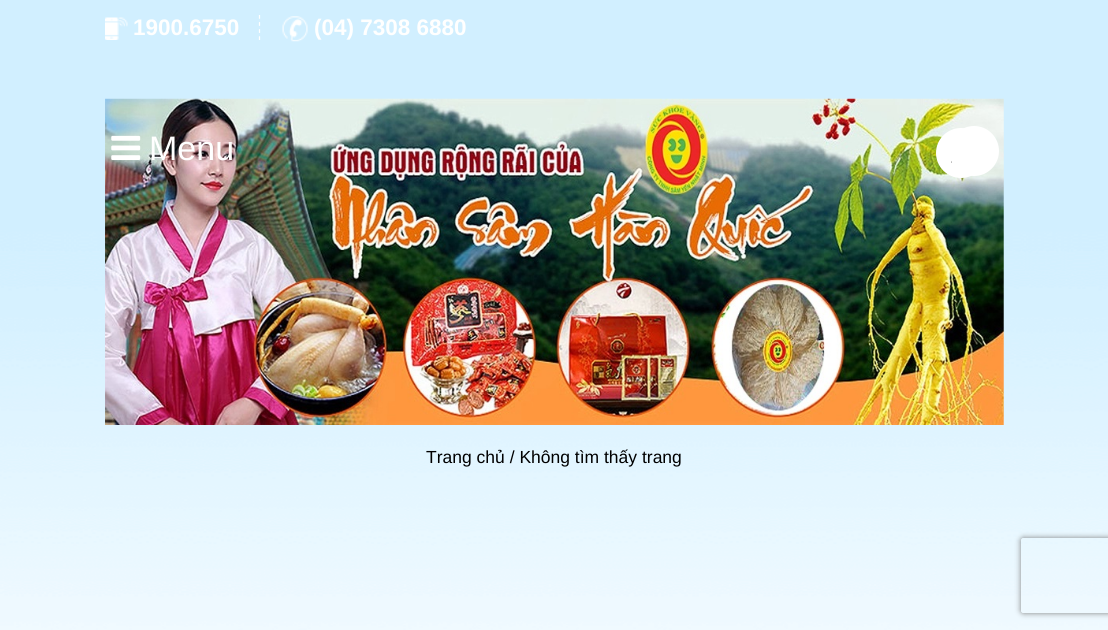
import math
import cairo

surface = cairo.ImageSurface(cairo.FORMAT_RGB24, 1108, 630)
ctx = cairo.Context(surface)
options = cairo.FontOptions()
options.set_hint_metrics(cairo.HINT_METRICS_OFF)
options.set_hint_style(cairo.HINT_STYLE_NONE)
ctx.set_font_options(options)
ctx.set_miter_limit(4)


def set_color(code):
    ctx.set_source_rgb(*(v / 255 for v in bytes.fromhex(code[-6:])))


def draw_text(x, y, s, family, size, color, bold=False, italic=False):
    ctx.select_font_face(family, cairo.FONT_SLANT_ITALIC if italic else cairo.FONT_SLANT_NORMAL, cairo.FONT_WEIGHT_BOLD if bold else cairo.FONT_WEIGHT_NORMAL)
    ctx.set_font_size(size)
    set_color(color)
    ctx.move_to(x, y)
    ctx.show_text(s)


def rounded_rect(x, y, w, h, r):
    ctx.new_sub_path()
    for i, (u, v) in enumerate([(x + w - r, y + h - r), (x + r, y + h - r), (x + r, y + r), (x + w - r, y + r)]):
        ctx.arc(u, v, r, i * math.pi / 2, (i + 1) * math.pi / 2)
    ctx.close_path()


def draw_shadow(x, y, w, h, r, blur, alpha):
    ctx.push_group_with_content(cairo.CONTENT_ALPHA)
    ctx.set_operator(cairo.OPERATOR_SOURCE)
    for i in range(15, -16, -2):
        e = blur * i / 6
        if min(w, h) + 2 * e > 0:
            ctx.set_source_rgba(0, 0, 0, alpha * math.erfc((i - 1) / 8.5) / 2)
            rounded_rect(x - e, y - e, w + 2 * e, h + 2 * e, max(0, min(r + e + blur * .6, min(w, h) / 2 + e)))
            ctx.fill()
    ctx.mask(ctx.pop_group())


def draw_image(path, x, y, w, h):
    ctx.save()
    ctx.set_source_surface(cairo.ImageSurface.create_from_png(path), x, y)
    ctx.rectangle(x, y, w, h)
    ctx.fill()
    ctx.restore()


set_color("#ffffff")
ctx.paint()
draw_image("assets/img1.png", 0, 0, 1108, 630)
draw_image("assets/img2.png", 105, 17, 23, 23)
draw_text(133, 35, "1900.6750", "Liberation Sans", 22.5, "#ffffff", bold=True)
ctx.new_path()
ctx.move_to(259.5, 15)
ctx.line_to(259.5, 40)
ctx.set_line_width(1.2)
ctx.set_dash([3.75, 3.34])
ctx.stroke()
draw_image("assets/img3.png", 282, 16, 26, 26)
draw_text(314, 35, "(04) 7308 6880", "Liberation Sans", 22.5, "#ffffff", bold=True)
draw_image("assets/img6.png", 105, 98, 899, 327)
ctx.arc(961, 153, 25, 0, 2 * math.pi)
ctx.fill()
draw_image("assets/img4.png", 951, 160, 1, 3)
ctx.arc(974, 151, 23, 0, 2 * math.pi)
ctx.fill_preserve()
ctx.set_line_width(4)
ctx.set_dash([])
ctx.stroke()
draw_image("assets/img5.png", 111, 135, 30, 25)
draw_text(149, 160, "Menu", "Liberation Sans", 34, "#ffffff")
draw_text(426, 463, "Trang chủ / Không tìm thấy trang", "Liberation Sans", 17.5, "#000000")
ctx.save()
ctx.set_fill_rule(cairo.FILL_RULE_EVEN_ODD)
ctx.new_path()
ctx.move_to(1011, 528)
ctx.line_to(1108, 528)
ctx.line_to(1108, 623)
ctx.line_to(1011, 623)
ctx.close_path()
ctx.move_to(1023.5, 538)
ctx.line_to(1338.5, 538)
ctx.curve_to(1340, 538, 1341, 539, 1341, 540.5)
ctx.line_to(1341, 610.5)
ctx.curve_to(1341, 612, 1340, 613, 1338.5, 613)
ctx.line_to(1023.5, 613)
ctx.curve_to(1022, 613, 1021, 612, 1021, 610.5)
ctx.line_to(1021, 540.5)
ctx.curve_to(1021, 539, 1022, 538, 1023.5, 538)
ctx.close_path()
ctx.clip()
set_color("#808080")
draw_shadow(1021, 538, 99, 75, 2.5, 3, 1)
ctx.restore()
surface.write_to_png("output.png")
